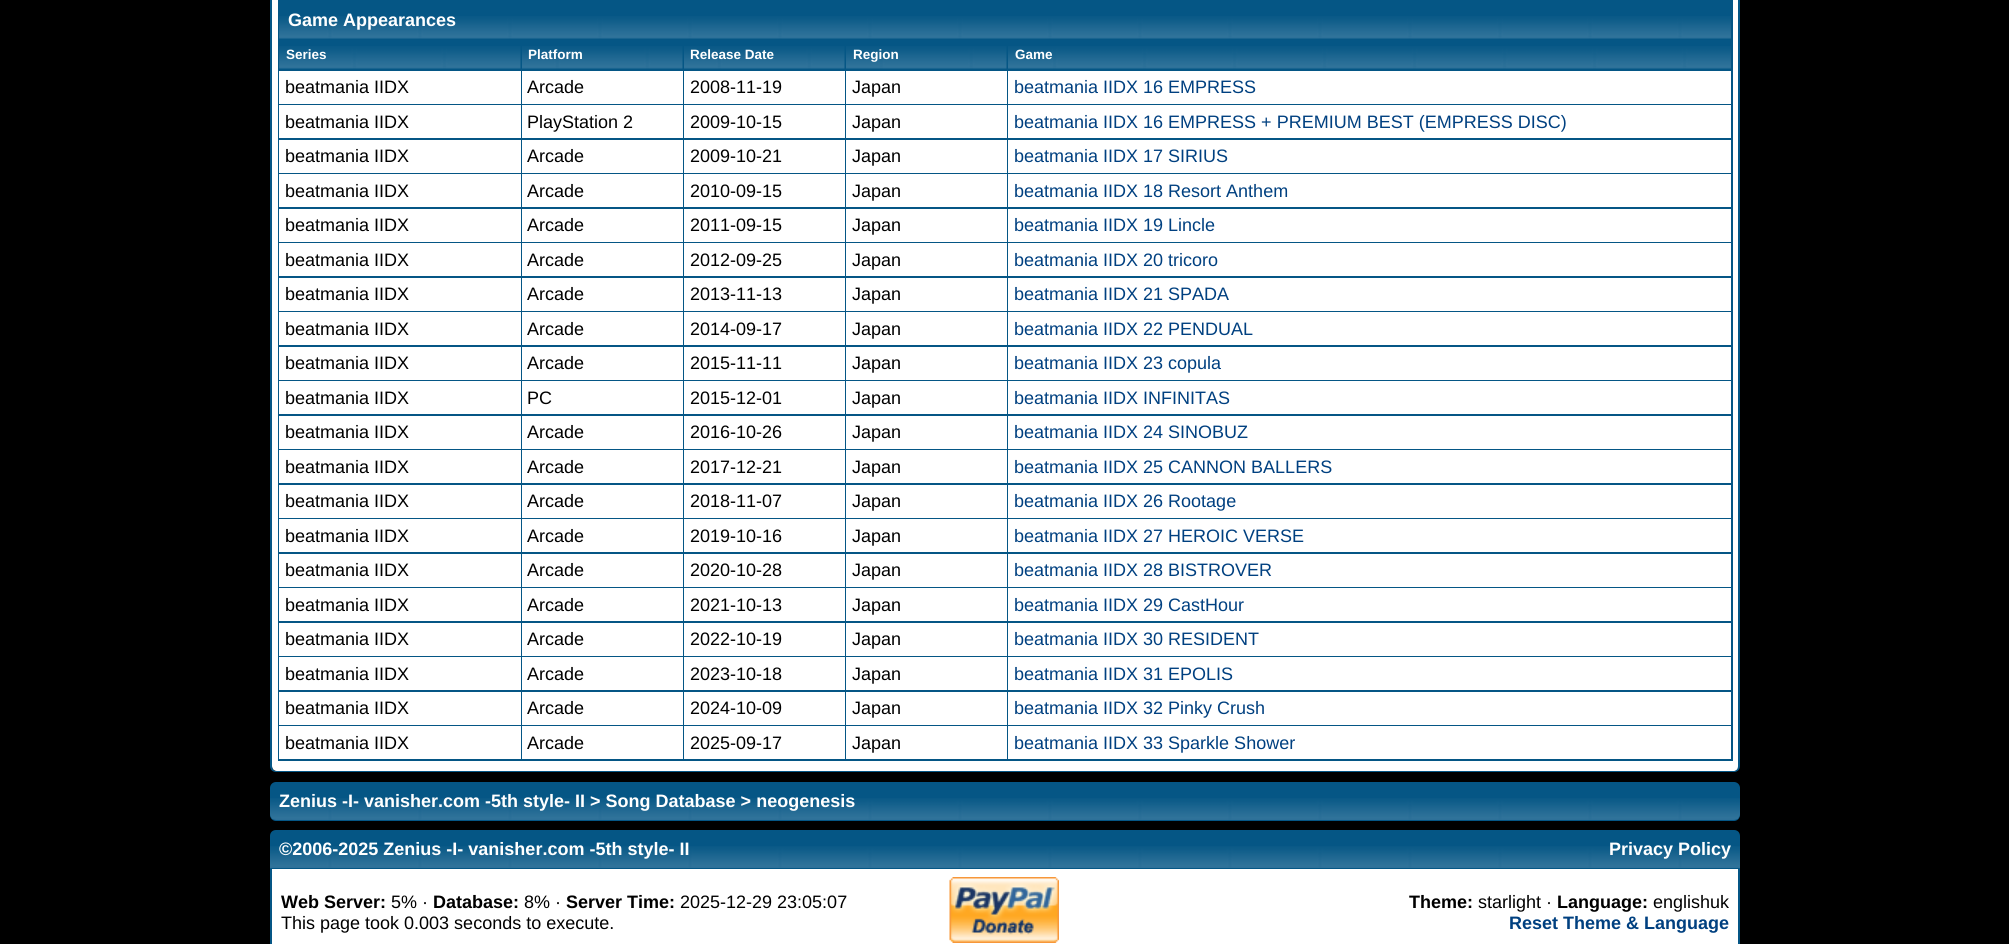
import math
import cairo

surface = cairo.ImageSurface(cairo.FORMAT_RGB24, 2009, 944)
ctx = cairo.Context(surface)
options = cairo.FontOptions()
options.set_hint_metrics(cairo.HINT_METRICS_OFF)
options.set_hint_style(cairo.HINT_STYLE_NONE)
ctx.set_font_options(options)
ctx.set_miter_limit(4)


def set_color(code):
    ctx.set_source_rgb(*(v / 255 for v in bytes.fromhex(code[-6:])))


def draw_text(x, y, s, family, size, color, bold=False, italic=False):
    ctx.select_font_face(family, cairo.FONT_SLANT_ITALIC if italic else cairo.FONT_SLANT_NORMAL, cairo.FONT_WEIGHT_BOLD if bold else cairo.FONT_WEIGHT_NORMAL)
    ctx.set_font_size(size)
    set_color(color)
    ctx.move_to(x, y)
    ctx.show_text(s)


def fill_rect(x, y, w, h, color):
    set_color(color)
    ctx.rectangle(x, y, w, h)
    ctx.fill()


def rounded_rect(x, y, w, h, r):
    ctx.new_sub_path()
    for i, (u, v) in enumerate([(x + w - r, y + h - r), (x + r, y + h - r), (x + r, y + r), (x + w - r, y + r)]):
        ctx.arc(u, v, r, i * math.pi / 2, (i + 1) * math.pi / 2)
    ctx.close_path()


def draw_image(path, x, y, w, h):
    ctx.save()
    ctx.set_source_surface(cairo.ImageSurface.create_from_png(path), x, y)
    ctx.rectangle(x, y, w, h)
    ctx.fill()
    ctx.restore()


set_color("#000000")
ctx.paint()
set_color("#ffffff")
ctx.new_path()
ctx.move_to(272, -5)
ctx.line_to(1739, -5)
ctx.line_to(1739, 766)
ctx.curve_to(1739, 769, 1737, 771, 1734, 771)
ctx.line_to(277, 771)
ctx.curve_to(274, 771, 272, 769, 272, 766)
ctx.close_path()
ctx.fill()
set_color("#055685")
ctx.set_fill_rule(cairo.FILL_RULE_EVEN_ODD)
ctx.new_path()
ctx.move_to(270, -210)
ctx.line_to(1740, -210)
ctx.line_to(1740, 766)
ctx.curve_to(1740, 770, 1737, 772, 1734, 772)
ctx.line_to(276, 772)
ctx.curve_to(273, 772, 270, 770, 270, 766)
ctx.close_path()
ctx.move_to(272, -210)
ctx.line_to(1738, -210)
ctx.line_to(1738, 766)
ctx.curve_to(1738, 769, 1736, 771, 1734, 771)
ctx.line_to(276, 771)
ctx.curve_to(274, 771, 272, 769, 272, 766)
ctx.close_path()
ctx.fill()
fill_rect(278, 0, 1455, 761, "#055685")
draw_image("assets/img1.png", 279, 16, 1452, 23)
draw_text(288, 26, "Game Appearances", "Liberation Sans", 18, "#ffffff", bold=True)
draw_image("assets/img2.png", 279, 46, 242, 23)
draw_text(286, 59, "Series", "Liberation Sans", 13.5, "#ffffff", bold=True)
draw_image("assets/img3.png", 522, 46, 161, 23)
draw_text(528, 59, "Platform", "Liberation Sans", 13.5, "#ffffff", bold=True)
draw_image("assets/img4.png", 684, 46, 161, 23)
draw_text(690, 59, "Release Date", "Liberation Sans", 13.5, "#ffffff", bold=True)
draw_image("assets/img5.png", 846, 46, 161, 23)
draw_text(853, 59, "Region", "Liberation Sans", 13.5, "#ffffff", bold=True)
draw_image("assets/img6.png", 1008, 46, 723, 23)
draw_text(1015, 59, "Game", "Liberation Sans", 13.5, "#ffffff", bold=True)
fill_rect(279, 71, 242, 33, "#ffffff")
draw_text(285, 93, "beatmania IIDX", "Liberation Sans", 18, "#000000")
fill_rect(522, 71, 161, 33, "#ffffff")
draw_text(527, 93, "Arcade", "Liberation Sans", 18, "#000000")
fill_rect(684, 71, 161, 33, "#ffffff")
draw_text(690, 93, "2008-11-19", "Liberation Sans", 18, "#000000")
fill_rect(846, 71, 161, 33, "#ffffff")
draw_text(852, 93, "Japan", "Liberation Sans", 18, "#000000")
fill_rect(1008, 71, 723, 33, "#ffffff")
draw_text(1014, 93, "beatmania IIDX 16 EMPRESS", "Liberation Sans", 18, "#004080")
fill_rect(279, 105, 242, 33, "#ffffff")
draw_text(285, 128, "beatmania IIDX", "Liberation Sans", 18, "#000000")
fill_rect(522, 105, 161, 33, "#ffffff")
draw_text(527, 128, "PlayStation 2", "Liberation Sans", 18, "#000000")
fill_rect(684, 105, 161, 33, "#ffffff")
draw_text(690, 128, "2009-10-15", "Liberation Sans", 18, "#000000")
fill_rect(846, 105, 161, 33, "#ffffff")
draw_text(852, 128, "Japan", "Liberation Sans", 18, "#000000")
fill_rect(1008, 105, 723, 33, "#ffffff")
draw_text(1014, 128, "beatmania IIDX 16 EMPRESS + PREMIUM BEST (EMPRESS DISC)", "Liberation Sans", 18, "#004080")
fill_rect(279, 140, 242, 33, "#ffffff")
draw_text(285, 162, "beatmania IIDX", "Liberation Sans", 18, "#000000")
fill_rect(522, 140, 161, 33, "#ffffff")
draw_text(527, 162, "Arcade", "Liberation Sans", 18, "#000000")
fill_rect(684, 140, 161, 33, "#ffffff")
draw_text(690, 162, "2009-10-21", "Liberation Sans", 18, "#000000")
fill_rect(846, 140, 161, 33, "#ffffff")
draw_text(852, 162, "Japan", "Liberation Sans", 18, "#000000")
fill_rect(1008, 140, 723, 33, "#ffffff")
draw_text(1014, 162, "beatmania IIDX 17 SIRIUS", "Liberation Sans", 18, "#004080")
fill_rect(279, 174, 242, 33, "#ffffff")
draw_text(285, 197, "beatmania IIDX", "Liberation Sans", 18, "#000000")
fill_rect(522, 174, 161, 33, "#ffffff")
draw_text(527, 197, "Arcade", "Liberation Sans", 18, "#000000")
fill_rect(684, 174, 161, 33, "#ffffff")
draw_text(690, 197, "2010-09-15", "Liberation Sans", 18, "#000000")
fill_rect(846, 174, 161, 33, "#ffffff")
draw_text(852, 197, "Japan", "Liberation Sans", 18, "#000000")
fill_rect(1008, 174, 723, 33, "#ffffff")
draw_text(1014, 197, "beatmania IIDX 18 Resort Anthem", "Liberation Sans", 18, "#004080")
fill_rect(279, 209, 242, 33, "#ffffff")
draw_text(285, 231, "beatmania IIDX", "Liberation Sans", 18, "#000000")
fill_rect(522, 209, 161, 33, "#ffffff")
draw_text(527, 231, "Arcade", "Liberation Sans", 18, "#000000")
fill_rect(684, 209, 161, 33, "#ffffff")
draw_text(690, 231, "2011-09-15", "Liberation Sans", 18, "#000000")
fill_rect(846, 209, 161, 33, "#ffffff")
draw_text(852, 231, "Japan", "Liberation Sans", 18, "#000000")
fill_rect(1008, 209, 723, 33, "#ffffff")
draw_text(1014, 231, "beatmania IIDX 19 Lincle", "Liberation Sans", 18, "#004080")
fill_rect(279, 243, 242, 33, "#ffffff")
draw_text(285, 266, "beatmania IIDX", "Liberation Sans", 18, "#000000")
fill_rect(522, 243, 161, 33, "#ffffff")
draw_text(527, 266, "Arcade", "Liberation Sans", 18, "#000000")
fill_rect(684, 243, 161, 33, "#ffffff")
draw_text(690, 266, "2012-09-25", "Liberation Sans", 18, "#000000")
fill_rect(846, 243, 161, 33, "#ffffff")
draw_text(852, 266, "Japan", "Liberation Sans", 18, "#000000")
fill_rect(1008, 243, 723, 33, "#ffffff")
draw_text(1014, 266, "beatmania IIDX 20 tricoro", "Liberation Sans", 18, "#004080")
fill_rect(279, 278, 242, 33, "#ffffff")
draw_text(285, 300, "beatmania IIDX", "Liberation Sans", 18, "#000000")
fill_rect(522, 278, 161, 33, "#ffffff")
draw_text(527, 300, "Arcade", "Liberation Sans", 18, "#000000")
fill_rect(684, 278, 161, 33, "#ffffff")
draw_text(690, 300, "2013-11-13", "Liberation Sans", 18, "#000000")
fill_rect(846, 278, 161, 33, "#ffffff")
draw_text(852, 300, "Japan", "Liberation Sans", 18, "#000000")
fill_rect(1008, 278, 723, 33, "#ffffff")
draw_text(1014, 300, "beatmania IIDX 21 SPADA", "Liberation Sans", 18, "#004080")
fill_rect(279, 312, 242, 33, "#ffffff")
draw_text(285, 335, "beatmania IIDX", "Liberation Sans", 18, "#000000")
fill_rect(522, 312, 161, 33, "#ffffff")
draw_text(527, 335, "Arcade", "Liberation Sans", 18, "#000000")
fill_rect(684, 312, 161, 33, "#ffffff")
draw_text(690, 335, "2014-09-17", "Liberation Sans", 18, "#000000")
fill_rect(846, 312, 161, 33, "#ffffff")
draw_text(852, 335, "Japan", "Liberation Sans", 18, "#000000")
fill_rect(1008, 312, 723, 33, "#ffffff")
draw_text(1014, 335, "beatmania IIDX 22 PENDUAL", "Liberation Sans", 18, "#004080")
fill_rect(279, 347, 242, 33, "#ffffff")
draw_text(285, 369, "beatmania IIDX", "Liberation Sans", 18, "#000000")
fill_rect(522, 347, 161, 33, "#ffffff")
draw_text(527, 369, "Arcade", "Liberation Sans", 18, "#000000")
fill_rect(684, 347, 161, 33, "#ffffff")
draw_text(690, 369, "2015-11-11", "Liberation Sans", 18, "#000000")
fill_rect(846, 347, 161, 33, "#ffffff")
draw_text(852, 369, "Japan", "Liberation Sans", 18, "#000000")
fill_rect(1008, 347, 723, 33, "#ffffff")
draw_text(1014, 369, "beatmania IIDX 23 copula", "Liberation Sans", 18, "#004080")
fill_rect(279, 381, 242, 33, "#ffffff")
draw_text(285, 404, "beatmania IIDX", "Liberation Sans", 18, "#000000")
fill_rect(522, 381, 161, 33, "#ffffff")
draw_text(527, 404, "PC", "Liberation Sans", 18, "#000000")
fill_rect(684, 381, 161, 33, "#ffffff")
draw_text(690, 404, "2015-12-01", "Liberation Sans", 18, "#000000")
fill_rect(846, 381, 161, 33, "#ffffff")
draw_text(852, 404, "Japan", "Liberation Sans", 18, "#000000")
fill_rect(1008, 381, 723, 33, "#ffffff")
draw_text(1014, 404, "beatmania IIDX INFINITAS", "Liberation Sans", 18, "#004080")
fill_rect(279, 416, 242, 33, "#ffffff")
draw_text(285, 438, "beatmania IIDX", "Liberation Sans", 18, "#000000")
fill_rect(522, 416, 161, 33, "#ffffff")
draw_text(527, 438, "Arcade", "Liberation Sans", 18, "#000000")
fill_rect(684, 416, 161, 33, "#ffffff")
draw_text(690, 438, "2016-10-26", "Liberation Sans", 18, "#000000")
fill_rect(846, 416, 161, 33, "#ffffff")
draw_text(852, 438, "Japan", "Liberation Sans", 18, "#000000")
fill_rect(1008, 416, 723, 33, "#ffffff")
draw_text(1014, 438, "beatmania IIDX 24 SINOBUZ", "Liberation Sans", 18, "#004080")
fill_rect(279, 450, 242, 33, "#ffffff")
draw_text(285, 473, "beatmania IIDX", "Liberation Sans", 18, "#000000")
fill_rect(522, 450, 161, 33, "#ffffff")
draw_text(527, 473, "Arcade", "Liberation Sans", 18, "#000000")
fill_rect(684, 450, 161, 33, "#ffffff")
draw_text(690, 473, "2017-12-21", "Liberation Sans", 18, "#000000")
fill_rect(846, 450, 161, 33, "#ffffff")
draw_text(852, 473, "Japan", "Liberation Sans", 18, "#000000")
fill_rect(1008, 450, 723, 33, "#ffffff")
draw_text(1014, 473, "beatmania IIDX 25 CANNON BALLERS", "Liberation Sans", 18, "#004080")
fill_rect(279, 485, 242, 33, "#ffffff")
draw_text(285, 507, "beatmania IIDX", "Liberation Sans", 18, "#000000")
fill_rect(522, 485, 161, 33, "#ffffff")
draw_text(527, 507, "Arcade", "Liberation Sans", 18, "#000000")
fill_rect(684, 485, 161, 33, "#ffffff")
draw_text(690, 507, "2018-11-07", "Liberation Sans", 18, "#000000")
fill_rect(846, 485, 161, 33, "#ffffff")
draw_text(852, 507, "Japan", "Liberation Sans", 18, "#000000")
fill_rect(1008, 485, 723, 33, "#ffffff")
draw_text(1014, 507, "beatmania IIDX 26 Rootage", "Liberation Sans", 18, "#004080")
fill_rect(279, 519, 242, 33, "#ffffff")
draw_text(285, 542, "beatmania IIDX", "Liberation Sans", 18, "#000000")
fill_rect(522, 519, 161, 33, "#ffffff")
draw_text(527, 542, "Arcade", "Liberation Sans", 18, "#000000")
fill_rect(684, 519, 161, 33, "#ffffff")
draw_text(690, 542, "2019-10-16", "Liberation Sans", 18, "#000000")
fill_rect(846, 519, 161, 33, "#ffffff")
draw_text(852, 542, "Japan", "Liberation Sans", 18, "#000000")
fill_rect(1008, 519, 723, 33, "#ffffff")
draw_text(1014, 542, "beatmania IIDX 27 HEROIC VERSE", "Liberation Sans", 18, "#004080")
fill_rect(279, 554, 242, 33, "#ffffff")
draw_text(285, 576, "beatmania IIDX", "Liberation Sans", 18, "#000000")
fill_rect(522, 554, 161, 33, "#ffffff")
draw_text(527, 576, "Arcade", "Liberation Sans", 18, "#000000")
fill_rect(684, 554, 161, 33, "#ffffff")
draw_text(690, 576, "2020-10-28", "Liberation Sans", 18, "#000000")
fill_rect(846, 554, 161, 33, "#ffffff")
draw_text(852, 576, "Japan", "Liberation Sans", 18, "#000000")
fill_rect(1008, 554, 723, 33, "#ffffff")
draw_text(1014, 576, "beatmania IIDX 28 BISTROVER", "Liberation Sans", 18, "#004080")
fill_rect(279, 588, 242, 33, "#ffffff")
draw_text(285, 611, "beatmania IIDX", "Liberation Sans", 18, "#000000")
fill_rect(522, 588, 161, 33, "#ffffff")
draw_text(527, 611, "Arcade", "Liberation Sans", 18, "#000000")
fill_rect(684, 588, 161, 33, "#ffffff")
draw_text(690, 611, "2021-10-13", "Liberation Sans", 18, "#000000")
fill_rect(846, 588, 161, 33, "#ffffff")
draw_text(852, 611, "Japan", "Liberation Sans", 18, "#000000")
fill_rect(1008, 588, 723, 33, "#ffffff")
draw_text(1014, 611, "beatmania IIDX 29 CastHour", "Liberation Sans", 18, "#004080")
fill_rect(279, 623, 242, 33, "#ffffff")
draw_text(285, 645, "beatmania IIDX", "Liberation Sans", 18, "#000000")
fill_rect(522, 623, 161, 33, "#ffffff")
draw_text(527, 645, "Arcade", "Liberation Sans", 18, "#000000")
fill_rect(684, 623, 161, 33, "#ffffff")
draw_text(690, 645, "2022-10-19", "Liberation Sans", 18, "#000000")
fill_rect(846, 623, 161, 33, "#ffffff")
draw_text(852, 645, "Japan", "Liberation Sans", 18, "#000000")
fill_rect(1008, 623, 723, 33, "#ffffff")
draw_text(1014, 645, "beatmania IIDX 30 RESIDENT", "Liberation Sans", 18, "#004080")
fill_rect(279, 657, 242, 33, "#ffffff")
draw_text(285, 680, "beatmania IIDX", "Liberation Sans", 18, "#000000")
fill_rect(522, 657, 161, 33, "#ffffff")
draw_text(527, 680, "Arcade", "Liberation Sans", 18, "#000000")
fill_rect(684, 657, 161, 33, "#ffffff")
draw_text(690, 680, "2023-10-18", "Liberation Sans", 18, "#000000")
fill_rect(846, 657, 161, 33, "#ffffff")
draw_text(852, 680, "Japan", "Liberation Sans", 18, "#000000")
fill_rect(1008, 657, 723, 33, "#ffffff")
draw_text(1014, 680, "beatmania IIDX 31 EPOLIS", "Liberation Sans", 18, "#004080")
fill_rect(279, 692, 242, 33, "#ffffff")
draw_text(285, 714, "beatmania IIDX", "Liberation Sans", 18, "#000000")
fill_rect(522, 692, 161, 33, "#ffffff")
draw_text(527, 714, "Arcade", "Liberation Sans", 18, "#000000")
fill_rect(684, 692, 161, 33, "#ffffff")
draw_text(690, 714, "2024-10-09", "Liberation Sans", 18, "#000000")
fill_rect(846, 692, 161, 33, "#ffffff")
draw_text(852, 714, "Japan", "Liberation Sans", 18, "#000000")
fill_rect(1008, 692, 723, 33, "#ffffff")
draw_text(1014, 714, "beatmania IIDX 32 Pinky Crush", "Liberation Sans", 18, "#004080")
fill_rect(279, 726, 242, 33, "#ffffff")
draw_text(285, 749, "beatmania IIDX", "Liberation Sans", 18, "#000000")
fill_rect(522, 726, 161, 33, "#ffffff")
draw_text(527, 749, "Arcade", "Liberation Sans", 18, "#000000")
fill_rect(684, 726, 161, 33, "#ffffff")
draw_text(690, 749, "2025-09-17", "Liberation Sans", 18, "#000000")
fill_rect(846, 726, 161, 33, "#ffffff")
draw_text(852, 749, "Japan", "Liberation Sans", 18, "#000000")
fill_rect(1008, 726, 723, 33, "#ffffff")
draw_text(1014, 749, "beatmania IIDX 33 Sparkle Shower", "Liberation Sans", 18, "#004080")
set_color("#055685")
rounded_rect(270, 782, 1470, 39, 6)
ctx.fill()
draw_image("assets/img7.png", 270, 798, 1470, 22)
draw_text(279, 807, "Zenius -I- vanisher.com -5th style- II > Song Database > neogenesis", "Liberation Sans", 18, "#ffffff", bold=True)
set_color("#055685")
ctx.new_path()
ctx.move_to(276, 830)
ctx.line_to(1734, 830)
ctx.curve_to(1737.5, 830, 1740, 832.5, 1740, 836)
ctx.line_to(1740, 869)
ctx.line_to(270, 869)
ctx.line_to(270, 836)
ctx.curve_to(270, 832.5, 272.5, 830, 276, 830)
ctx.close_path()
ctx.fill()
draw_image("assets/img8.png", 270, 846, 1470, 22)
draw_text(279, 855, "©2006-2025 Zenius -I- vanisher.com -5th style- II", "Liberation Sans", 18, "#ffffff", bold=True)
draw_text(1609, 855, "Privacy Policy", "Liberation Sans", 18, "#ffffff", bold=True)
fill_rect(272, 869, 1466, 75, "#ffffff")
set_color("#055685")
ctx.new_path()
ctx.move_to(270, 868)
ctx.line_to(1740, 868)
ctx.line_to(1740, 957)
ctx.curve_to(1740, 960, 1737, 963, 1734, 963)
ctx.line_to(276, 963)
ctx.curve_to(273, 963, 270, 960, 270, 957)
ctx.close_path()
ctx.move_to(272, 868)
ctx.line_to(1738, 868)
ctx.line_to(1738, 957)
ctx.curve_to(1738, 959, 1736, 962, 1734, 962)
ctx.line_to(276, 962)
ctx.curve_to(274, 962, 272, 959, 272, 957)
ctx.close_path()
ctx.fill()
draw_text(281, 908, "Web Server:", "Liberation Sans", 18, "#000000", bold=True)
draw_text(391, 908, "5% ·", "Liberation Sans", 18, "#000000")
draw_text(433, 908, "Database:", "Liberation Sans", 18, "#000000", bold=True)
draw_text(524, 908, "8% ·", "Liberation Sans", 18, "#000000")
draw_text(566, 908, "Server Time:", "Liberation Sans", 18, "#000000", bold=True)
draw_text(680, 908, "2025-12-29 23:05:07", "Liberation Sans", 18, "#000000")
draw_text(281, 929, "This page took 0.003 seconds to execute.", "Liberation Sans", 18, "#000000")
draw_image("assets/img9.png", 949, 877, 110, 66)
draw_text(1409, 908, "Theme:", "Liberation Sans", 18, "#000000", bold=True)
draw_text(1478, 908, "starlight ·", "Liberation Sans", 18, "#000000")
draw_text(1557, 908, "Language:", "Liberation Sans", 18, "#000000", bold=True)
draw_text(1653, 908, "englishuk", "Liberation Sans", 18, "#000000")
draw_text(1509, 929, "Reset Theme & Language", "Liberation Sans", 18, "#004080", bold=True)
surface.write_to_png("output.png")
